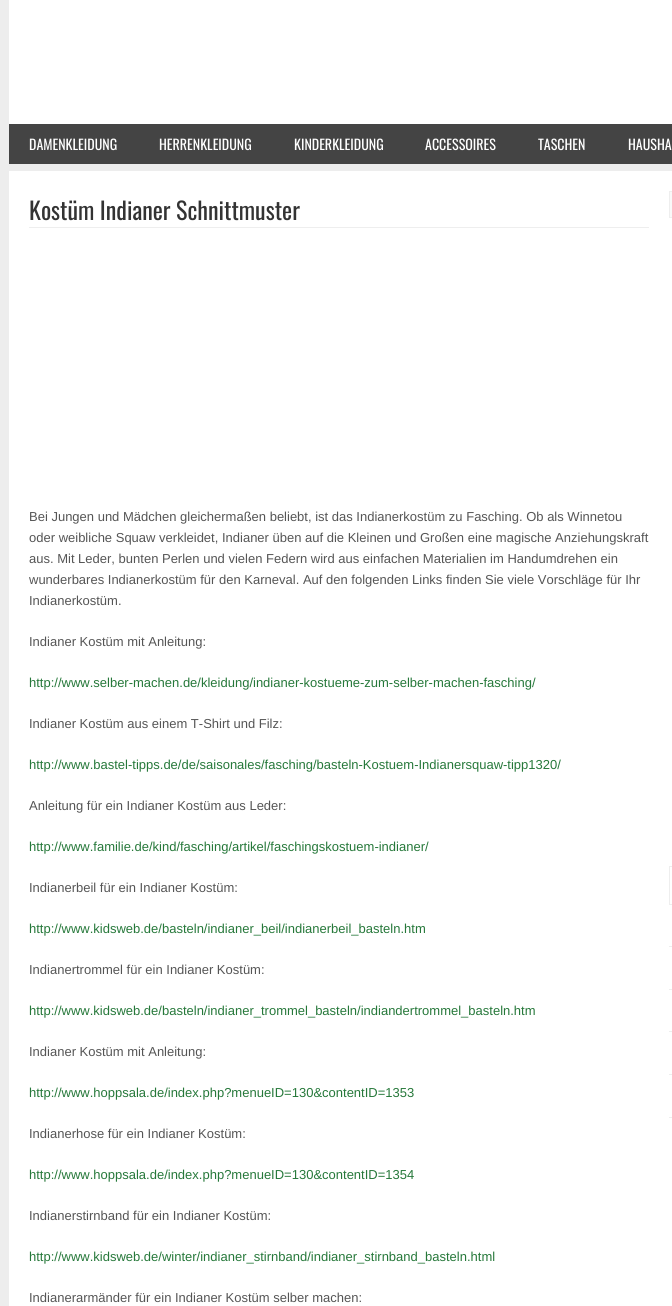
import math
import cairo

surface = cairo.ImageSurface(cairo.FORMAT_RGB24, 672, 1306)
ctx = cairo.Context(surface)
options = cairo.FontOptions()
options.set_hint_metrics(cairo.HINT_METRICS_OFF)
options.set_hint_style(cairo.HINT_STYLE_NONE)
ctx.set_font_options(options)
ctx.set_miter_limit(4)


def set_color(code):
    ctx.set_source_rgb(*(v / 255 for v in bytes.fromhex(code[-6:])))


def draw_text(x, y, s, family, size, color, bold=False, italic=False):
    ctx.select_font_face(family, cairo.FONT_SLANT_ITALIC if italic else cairo.FONT_SLANT_NORMAL, cairo.FONT_WEIGHT_BOLD if bold else cairo.FONT_WEIGHT_NORMAL)
    ctx.set_font_size(size)
    set_color(color)
    ctx.move_to(x, y)
    ctx.show_text(s)


def fill_rect(x, y, w, h, color):
    set_color(color)
    ctx.rectangle(x, y, w, h)
    ctx.fill()


set_color("#ededed")
ctx.paint()
fill_rect(9, 0, 663, 124, "#ffffff")
fill_rect(9, 124, 663, 40, "#444444")
draw_text(29, 150, "DAMENKLEIDUNG", "Oswald", 14, "#ffffff")
draw_text(159, 150, "HERRENKLEIDUNG", "Oswald", 14, "#ffffff")
draw_text(294, 150, "KINDERKLEIDUNG", "Oswald", 14, "#ffffff")
draw_text(425, 150, "ACCESSOIRES", "Oswald", 14, "#ffffff")
draw_text(538, 150, "TASCHEN", "Oswald", 14, "#ffffff")
draw_text(628, 150, "HAUSHA", "Oswald", 14, "#ffffff")
fill_rect(9, 171, 663, 1135, "#ffffff")
fill_rect(29, 227, 620, 1, "#eeeeee")
draw_text(29, 220, "Kostüm Indianer Schnittmuster", "Oswald", 24, "#333333")
draw_text(29, 521, "Bei Jungen und Mädchen gleichermaßen beliebt, ist das Indianerkostüm zu Fasching. Ob als Winnetou", "Liberation Sans", 13, "#555555")
draw_text(29, 542, "oder weibliche Squaw verkleidet, Indianer üben auf die Kleinen und Großen eine magische Anziehungskraft", "Liberation Sans", 13, "#555555")
draw_text(29, 563, "aus. Mit Leder, bunten Perlen und vielen Federn wird aus einfachen Materialien im Handumdrehen ein", "Liberation Sans", 13, "#555555")
draw_text(29, 584, "wunderbares Indianerkostüm für den Karneval. Auf den folgenden Links finden Sie viele Vorschläge für Ihr", "Liberation Sans", 13, "#555555")
draw_text(29, 605, "Indianerkostüm.", "Liberation Sans", 13, "#555555")
draw_text(29, 646, "Indianer Kostüm mit Anleitung:", "Liberation Sans", 13, "#555555")
draw_text(29, 687, "http://www.selber-machen.de/kleidung/indianer-kostueme-zum-selber-machen-fasching/", "Liberation Sans", 13, "#26783a")
draw_text(29, 728, "Indianer Kostüm aus einem T-Shirt und Filz:", "Liberation Sans", 13, "#555555")
draw_text(29, 769, "http://www.bastel-tipps.de/de/saisonales/fasching/basteln-Kostuem-Indianersquaw-tipp1320/", "Liberation Sans", 13, "#26783a")
draw_text(29, 810, "Anleitung für ein Indianer Kostüm aus Leder:", "Liberation Sans", 13, "#555555")
draw_text(29, 851, "http://www.familie.de/kind/fasching/artikel/faschingskostuem-indianer/", "Liberation Sans", 13, "#26783a")
draw_text(29, 892, "Indianerbeil für ein Indianer Kostüm:", "Liberation Sans", 13, "#555555")
draw_text(29, 933, "http://www.kidsweb.de/basteln/indianer_beil/indianerbeil_basteln.htm", "Liberation Sans", 13, "#26783a")
draw_text(29, 974, "Indianertrommel für ein Indianer Kostüm:", "Liberation Sans", 13, "#555555")
draw_text(29, 1015, "http://www.kidsweb.de/basteln/indianer_trommel_basteln/indiandertrommel_basteln.htm", "Liberation Sans", 13, "#26783a")
draw_text(29, 1056, "Indianer Kostüm mit Anleitung:", "Liberation Sans", 13, "#555555")
draw_text(29, 1097, "http://www.hoppsala.de/index.php?menueID=130&contentID=1353", "Liberation Sans", 13, "#26783a")
draw_text(29, 1138, "Indianerhose für ein Indianer Kostüm:", "Liberation Sans", 13, "#555555")
draw_text(29, 1179, "http://www.hoppsala.de/index.php?menueID=130&contentID=1354", "Liberation Sans", 13, "#26783a")
draw_text(29, 1220, "Indianerstirnband für ein Indianer Kostüm:", "Liberation Sans", 13, "#555555")
draw_text(29, 1261, "http://www.kidsweb.de/winter/indianer_stirnband/indianer_stirnband_basteln.html", "Liberation Sans", 13, "#26783a")
draw_text(29, 1302, "Indianerarmänder für ein Indianer Kostüm selber machen:", "Liberation Sans", 13, "#555555")
set_color("#f9f9f9")
ctx.rectangle(669.5, 191.5, 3, 26)
ctx.fill_preserve()
set_color("#eeeeee")
ctx.set_line_width(1)
ctx.stroke()
ctx.rectangle(669.5, 866.5, 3, 38)
ctx.stroke()
ctx.new_path()
ctx.move_to(669, 946.5)
ctx.line_to(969, 946.5)
ctx.move_to(669, 989.5)
ctx.line_to(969, 989.5)
ctx.set_dash([3, 2.03])
ctx.stroke()
ctx.new_path()
ctx.move_to(669, 1031.5)
ctx.line_to(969, 1031.5)
ctx.move_to(669, 1074.5)
ctx.line_to(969, 1074.5)
ctx.stroke()
ctx.new_path()
ctx.move_to(669, 1117.5)
ctx.line_to(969, 1117.5)
ctx.stroke()
surface.write_to_png("output.png")
